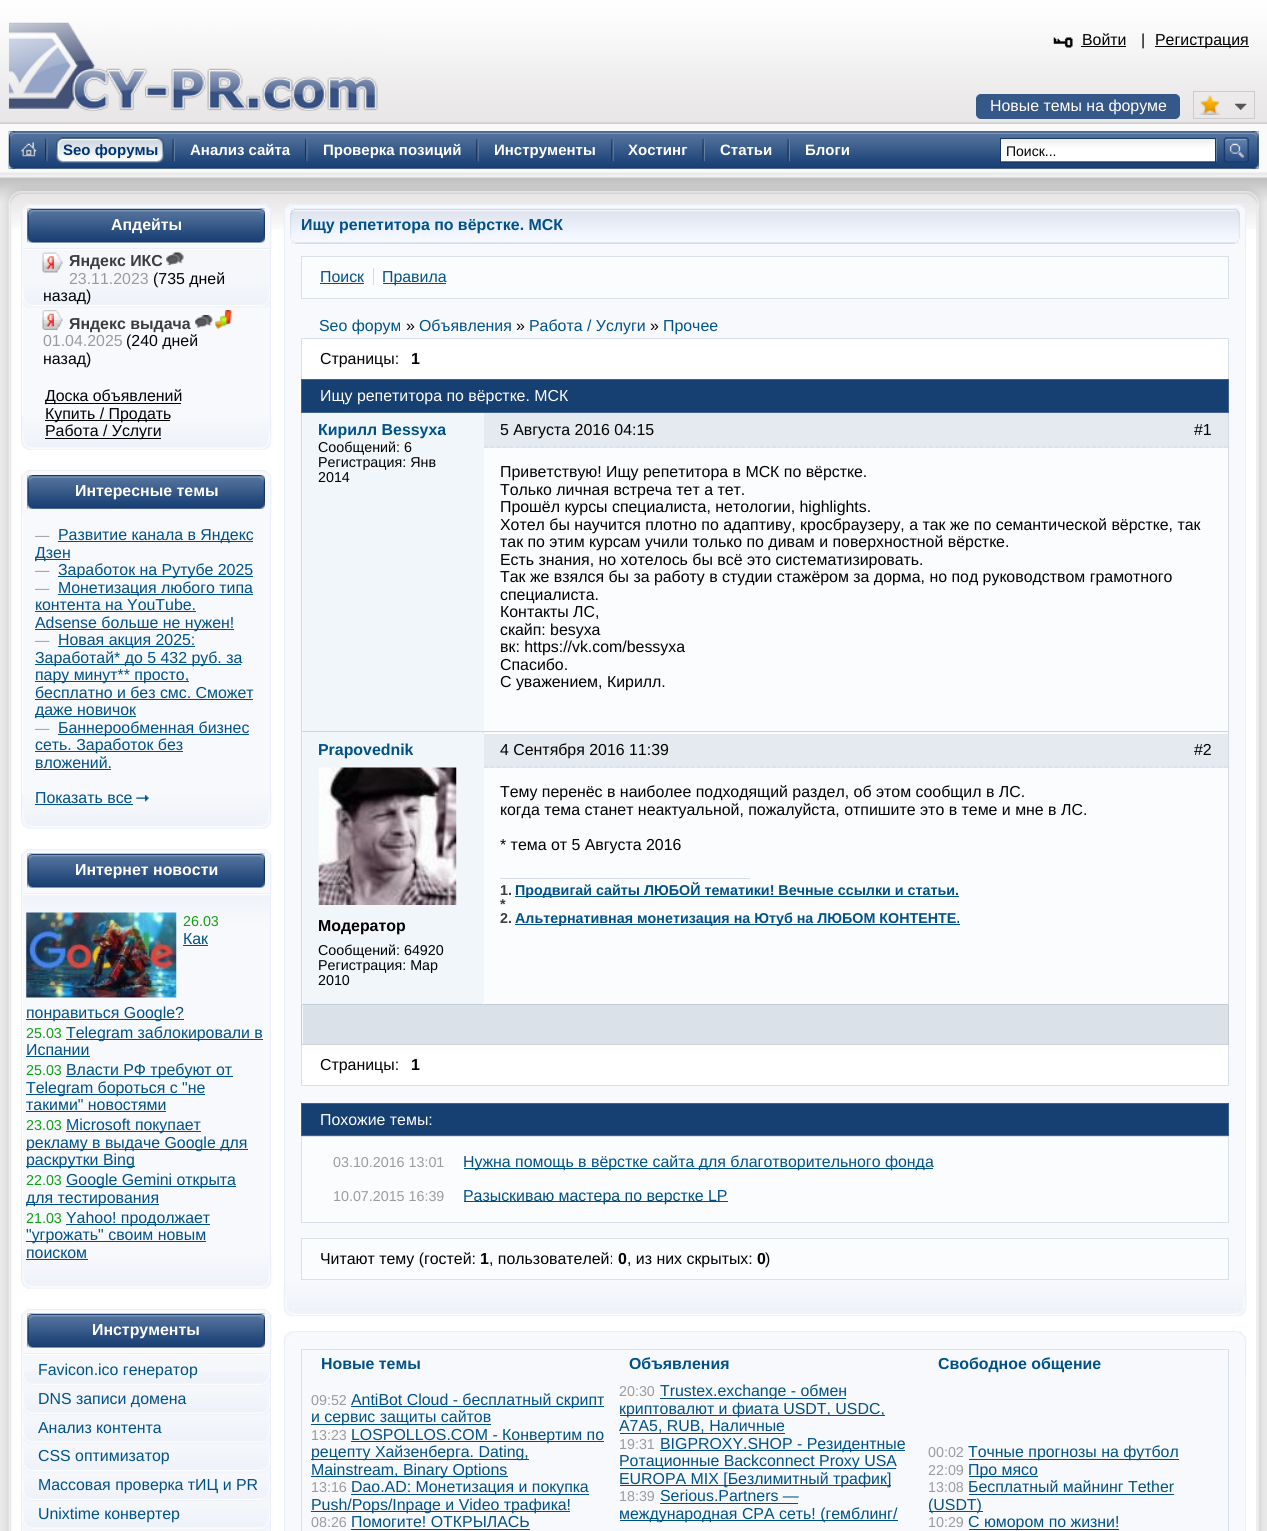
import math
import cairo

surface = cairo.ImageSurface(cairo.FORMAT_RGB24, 1267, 1531)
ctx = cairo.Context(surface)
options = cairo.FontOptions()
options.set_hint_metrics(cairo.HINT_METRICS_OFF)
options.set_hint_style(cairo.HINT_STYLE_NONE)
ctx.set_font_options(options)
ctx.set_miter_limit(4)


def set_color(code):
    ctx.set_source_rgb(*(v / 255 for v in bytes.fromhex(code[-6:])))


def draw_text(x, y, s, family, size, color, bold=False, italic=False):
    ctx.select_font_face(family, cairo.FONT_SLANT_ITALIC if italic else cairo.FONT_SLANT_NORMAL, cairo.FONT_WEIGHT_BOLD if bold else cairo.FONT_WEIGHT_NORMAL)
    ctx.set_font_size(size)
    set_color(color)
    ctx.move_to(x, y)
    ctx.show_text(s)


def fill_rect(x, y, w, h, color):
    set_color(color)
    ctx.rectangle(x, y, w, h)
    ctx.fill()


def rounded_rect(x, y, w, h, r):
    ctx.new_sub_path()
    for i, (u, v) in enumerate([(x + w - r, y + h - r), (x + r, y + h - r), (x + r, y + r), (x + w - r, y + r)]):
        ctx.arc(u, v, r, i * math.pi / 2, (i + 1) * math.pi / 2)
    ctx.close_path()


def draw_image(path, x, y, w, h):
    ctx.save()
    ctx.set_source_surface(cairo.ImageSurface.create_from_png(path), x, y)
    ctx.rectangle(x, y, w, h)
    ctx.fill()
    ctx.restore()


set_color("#ffffff")
ctx.paint()
draw_image("assets/img1.png", 0, 0, 1267, 185)
draw_image("assets/img2.png", 8, 22, 370, 89)
draw_image("assets/img3.png", 1053, 37, 20, 11)
draw_text(1082, 45, "Войти", "Liberation Sans", 15.9, "#000000")
fill_rect(1081, 46, 45, 1, "#000000")
draw_text(1141, 45, "|", "Liberation Sans", 15.9, "#000000")
fill_rect(1155, 46, 94, 1, "#000000")
draw_text(1155, 45, "Регистрация", "Liberation Sans", 15.9, "#000000")
set_color("#355888")
rounded_rect(976.5, 94.5, 203, 24, 4.5)
ctx.fill_preserve()
ctx.set_line_width(1)
ctx.stroke()
draw_text(990, 111, "Новые темы на форуме", "Liberation Sans", 15.9, "#ffffff")
draw_image("assets/img4.png", 1235, 103, 12, 7)
ctx.rectangle(1193.5, 91.5, 61, 27)
set_color("#cccccc")
ctx.stroke()
draw_image("assets/img5.png", 1200, 95, 20, 20)
draw_image("assets/img7.png", 8, 131, 1251, 38)
draw_image("assets/img6.png", 21, 142, 16, 15)
draw_image("assets/img8.png", 8, 131, 7, 38)
draw_image("assets/img9.png", 45, 138, 3, 24)
draw_image("assets/img10.png", 56, 137, 8, 26)
draw_image("assets/img11.png", 62, 137, 102, 26)
draw_text(63, 155, "Seo форумы", "Liberation Sans", 15, "#003573", bold=True)
draw_image("assets/img12.png", 172, 138, 3, 24)
draw_text(190, 155, "Анализ сайта", "Liberation Sans", 15, "#ffffff", bold=True)
draw_image("assets/img9.png", 305, 138, 3, 24)
draw_text(323, 155, "Проверка позиций", "Liberation Sans", 15, "#ffffff", bold=True)
draw_image("assets/img13.png", 476, 138, 3, 24)
draw_text(494, 155, "Инструменты", "Liberation Sans", 15, "#ffffff", bold=True)
draw_image("assets/img13.png", 611, 138, 3, 24)
draw_text(628, 155, "Хостинг", "Liberation Sans", 15, "#ffffff", bold=True)
draw_image("assets/img12.png", 702, 138, 3, 24)
draw_text(720, 155, "Статьи", "Liberation Sans", 15, "#ffffff", bold=True)
draw_image("assets/img12.png", 787, 138, 3, 24)
draw_text(805, 155, "Блоги", "Liberation Sans", 15, "#ffffff", bold=True)
draw_image("assets/img14.png", 1252, 131, 7, 38)
draw_image("assets/img15.png", 1001, 138, 216, 24)
ctx.rectangle(1000.5, 138.5, 215, 24)
set_color("#173867")
ctx.stroke()
draw_text(1006, 156, "Поиск...", "Liberation Sans", 14, "#000000")
draw_image("assets/img16.png", 1223, 137, 26, 26)
draw_image("assets/img17.png", 11, 185, 1246, 44)
draw_image("assets/img18.png", 0, 203, 12, 1328)
draw_image("assets/img19.png", 1256, 203, 11, 1328)
draw_image("assets/img20.png", 0, 185, 21, 19)
draw_image("assets/img21.png", 1246, 185, 21, 19)
fill_rect(21, 248, 1, 192, "#e9eef8")
fill_rect(23, 248, 247, 1, "#e9eef8")
draw_image("assets/img22.png", 21, 203, 10, 46)
fill_rect(31, 205, 230, 4, "#f8f9fc")
fill_rect(31, 204, 230, 1, "#e9eef8")
draw_image("assets/img23.png", 261, 203, 11, 45)
fill_rect(23, 209, 247, 39, "#f8f9fc")
fill_rect(270, 209, 1, 4, "#e9eef8")
fill_rect(21, 209, 1, 39, "#e9eef8")
draw_image("assets/img24.png", 27, 208, 238, 36)
draw_image("assets/img25.png", 27, 208, 6, 36)
draw_text(111, 230, "Апдейты", "Liberation Sans", 15.9, "#ffffff", bold=True)
draw_image("assets/img26.png", 260, 208, 5, 36)
fill_rect(23, 308, 247, 109, "#f8f9fc")
draw_image("assets/img27.png", 22, 416, 250, 24)
fill_rect(270, 248, 1, 169, "#e9eef8")
draw_image("assets/img28.png", 22, 249, 248, 28)
fill_rect(23, 250, 247, 58, "#f6f7fb")
draw_image("assets/img29.png", 22, 279, 248, 29)
draw_image("assets/img30.png", 42, 252, 21, 21)
draw_text(69, 266, "Яндекс ИКС", "Liberation Sans", 15.9, "#3d3d3d", bold=True)
draw_image("assets/img31.png", 166, 252, 18, 14)
draw_text(69, 284, "23.11.2023", "Liberation Sans", 15.9, "#9b9b9b")
draw_text(153, 284, "(735 дней", "Liberation Sans", 15.9, "#000000")
draw_text(43, 301, "назад)", "Liberation Sans", 15.9, "#000000")
draw_image("assets/img32.png", 42, 310, 21, 20)
draw_text(69, 329, "Яндекс выдача", "Liberation Sans", 15.9, "#3d3d3d", bold=True)
draw_image("assets/img33.png", 195, 315, 18, 13)
draw_image("assets/img34.png", 214, 310, 19, 19)
draw_text(43, 346, "01.04.2025", "Liberation Sans", 15.9, "#9b9b9b")
draw_text(126, 346, "(240 дней", "Liberation Sans", 15.9, "#000000")
draw_text(43, 364, "назад)", "Liberation Sans", 15.9, "#000000")
fill_rect(45, 403, 136, 1, "#000000")
draw_text(45, 401, "Доска объявлений", "Liberation Sans", 15.9, "#000000")
fill_rect(45, 420, 125, 1, "#000000")
draw_text(45, 419, "Купить / Продать", "Liberation Sans", 15.9, "#000000")
fill_rect(45, 438, 116, 1, "#000000")
draw_text(45, 436, "Работа / Услуги", "Liberation Sans", 15.9, "#000000")
draw_image("assets/img35.png", 21, 416, 10, 34)
draw_image("assets/img36.png", 31, 440, 231, 10)
draw_image("assets/img37.png", 261, 417, 11, 33)
fill_rect(23, 514, 247, 305, "#f8f9fc")
fill_rect(21, 514, 1, 305, "#e9eef8")
draw_image("assets/img38.png", 21, 470, 10, 45)
fill_rect(31, 471, 230, 4, "#f8f9fc")
fill_rect(31, 470, 230, 1, "#e9eef8")
fill_rect(270, 514, 1, 281, "#e9eef8")
draw_image("assets/img39.png", 261, 470, 11, 45)
fill_rect(23, 475, 247, 39, "#f8f9fc")
fill_rect(270, 475, 1, 4, "#e9eef8")
fill_rect(21, 475, 1, 39, "#e9eef8")
draw_image("assets/img40.png", 27, 475, 238, 35)
draw_image("assets/img41.png", 27, 475, 6, 34)
draw_text(75, 496, "Интересные темы", "Liberation Sans", 15.9, "#ffffff", bold=True)
draw_image("assets/img42.png", 260, 475, 5, 34)
draw_image("assets/img43.png", 23, 795, 249, 24)
draw_text(35, 540, "—", "Liberation Sans", 14.3, "#9b9b9b")
fill_rect(58, 541, 195, 1, "#005187")
draw_text(58, 540, "Развитие канала в Яндекс", "Liberation Sans", 15.9, "#005187")
fill_rect(35, 559, 35, 1, "#005187")
draw_text(35, 558, "Дзен", "Liberation Sans", 15.9, "#005187")
draw_text(35, 575, "—", "Liberation Sans", 14.3, "#9b9b9b")
fill_rect(58, 576, 195, 1, "#005187")
draw_text(58, 575, "Заработок на Рутубе 2025", "Liberation Sans", 15.9, "#005187")
draw_text(35, 593, "—", "Liberation Sans", 14.3, "#9b9b9b")
fill_rect(58, 594, 195, 1, "#005187")
draw_text(58, 593, "Монетизация любого типа", "Liberation Sans", 15.9, "#005187")
draw_text(35, 610, "контента на YouTube.", "Liberation Sans", 15.9, "#005187")
fill_rect(35, 611, 161, 1, "#005187")
fill_rect(35, 629, 199, 1, "#005187")
draw_text(35, 628, "Adsense больше не нужен!", "Liberation Sans", 15.9, "#005187")
draw_text(35, 645, "—", "Liberation Sans", 14.3, "#9b9b9b")
fill_rect(58, 646, 137, 1, "#005187")
draw_text(58, 645, "Новая акция 2025:", "Liberation Sans", 15.9, "#005187")
fill_rect(35, 664, 206, 1, "#005187")
draw_text(35, 663, "Заработай* до 5 432 руб. за", "Liberation Sans", 15.9, "#005187")
fill_rect(35, 681, 154, 1, "#005187")
draw_text(35, 680, "пару минут** просто,", "Liberation Sans", 15.9, "#005187")
draw_text(35, 698, "бесплатно и без смс. Сможет", "Liberation Sans", 15.9, "#005187")
fill_rect(35, 699, 218, 1, "#005187")
fill_rect(35, 716, 101, 1, "#005187")
draw_text(35, 715, "даже новичок", "Liberation Sans", 15.9, "#005187")
draw_text(35, 733, "—", "Liberation Sans", 14.3, "#9b9b9b")
fill_rect(58, 734, 191, 1, "#005187")
draw_text(58, 733, "Баннерообменная бизнес", "Liberation Sans", 15.9, "#005187")
fill_rect(35, 751, 148, 1, "#005187")
draw_text(35, 750, "сеть. Заработок без", "Liberation Sans", 15.9, "#005187")
draw_text(35, 768, "вложений.", "Liberation Sans", 15.9, "#005187")
fill_rect(35, 769, 76, 1, "#005187")
draw_text(35, 803, "Показать все", "Liberation Sans", 15.9, "#005187")
fill_rect(35, 804, 98, 1, "#005187")
draw_image("assets/img44.png", 136, 795, 13, 7)
draw_image("assets/img45.png", 21, 795, 10, 34)
draw_image("assets/img46.png", 31, 819, 231, 10)
draw_image("assets/img47.png", 261, 795, 11, 34)
fill_rect(21, 893, 1, 386, "#e9eef8")
fill_rect(23, 893, 247, 1, "#e9eef8")
draw_image("assets/img48.png", 21, 848, 10, 46)
fill_rect(31, 850, 230, 4, "#f8f9fc")
fill_rect(31, 849, 230, 1, "#e9eef8")
draw_image("assets/img49.png", 261, 848, 11, 45)
fill_rect(23, 854, 247, 39, "#f8f9fc")
fill_rect(270, 854, 1, 4, "#e9eef8")
fill_rect(21, 854, 1, 39, "#e9eef8")
draw_image("assets/img50.png", 27, 853, 238, 36)
draw_image("assets/img25.png", 27, 853, 6, 36)
draw_text(75, 875, "Интернет новости", "Liberation Sans", 15.9, "#ffffff", bold=True)
draw_image("assets/img51.png", 260, 853, 5, 36)
fill_rect(23, 922, 247, 357, "#f8f9fc")
draw_image("assets/img43.png", 23, 1255, 249, 24)
fill_rect(270, 893, 1, 362, "#e9eef8")
draw_image("assets/img28.png", 22, 894, 248, 28)
draw_image("assets/img52.png", 26, 912, 151, 86)
draw_text(183, 926, "26.03", "Liberation Sans", 14.3, "#109f14")
draw_text(183, 944, "Как", "Liberation Sans", 15.9, "#005187")
fill_rect(183, 945, 25, 1, "#005187")
fill_rect(26, 1019, 158, 1, "#005187")
draw_text(26, 1018, "понравиться Google?", "Liberation Sans", 15.9, "#005187")
draw_text(26, 1038, "25.03", "Liberation Sans", 14.3, "#109f14")
fill_rect(66, 1039, 197, 1, "#005187")
draw_text(66, 1038, "Telegram заблокировали в", "Liberation Sans", 15.9, "#005187")
draw_text(26, 1055, "Испании", "Liberation Sans", 15.9, "#005187")
fill_rect(26, 1056, 64, 1, "#005187")
draw_text(26, 1075, "25.03", "Liberation Sans", 14.3, "#109f14")
fill_rect(66, 1076, 167, 1, "#005187")
draw_text(66, 1075, "Власти РФ требуют от", "Liberation Sans", 15.9, "#005187")
fill_rect(26, 1094, 179, 1, "#005187")
draw_text(26, 1093, "Telegram бороться с \"не", "Liberation Sans", 15.9, "#005187")
draw_text(26, 1110, "такими\" новостями", "Liberation Sans", 15.9, "#005187")
fill_rect(26, 1111, 140, 1, "#005187")
draw_text(26, 1130, "23.03", "Liberation Sans", 14.3, "#109f14")
fill_rect(66, 1131, 135, 1, "#005187")
draw_text(66, 1130, "Microsoft покупает", "Liberation Sans", 15.9, "#005187")
fill_rect(26, 1149, 222, 1, "#005187")
draw_text(26, 1148, "рекламу в выдаче Google для", "Liberation Sans", 15.9, "#005187")
fill_rect(26, 1166, 109, 1, "#005187")
draw_text(26, 1165, "раскрутки Bing", "Liberation Sans", 15.9, "#005187")
draw_text(26, 1185, "22.03", "Liberation Sans", 14.3, "#109f14")
fill_rect(66, 1186, 170, 1, "#005187")
draw_text(66, 1185, "Google Gemini открыта", "Liberation Sans", 15.9, "#005187")
fill_rect(26, 1204, 133, 1, "#005187")
draw_text(26, 1203, "для тестирования", "Liberation Sans", 15.9, "#005187")
draw_text(26, 1223, "21.03", "Liberation Sans", 14.3, "#109f14")
fill_rect(66, 1224, 144, 1, "#005187")
draw_text(66, 1223, "Yahoo! продолжает", "Liberation Sans", 15.9, "#005187")
fill_rect(26, 1241, 180, 1, "#005187")
draw_text(26, 1240, "\"угрожать\" своим новым", "Liberation Sans", 15.9, "#005187")
draw_text(26, 1258, "поиском", "Liberation Sans", 15.9, "#005187")
fill_rect(26, 1259, 62, 1, "#005187")
draw_image("assets/img53.png", 21, 1255, 10, 34)
draw_image("assets/img46.png", 31, 1279, 231, 10)
draw_image("assets/img47.png", 261, 1255, 11, 34)
fill_rect(21, 1353, 1, 178, "#e9eef8")
fill_rect(23, 1353, 247, 1, "#e9eef8")
draw_image("assets/img48.png", 21, 1308, 10, 46)
fill_rect(31, 1310, 230, 4, "#f8f9fc")
fill_rect(31, 1309, 230, 1, "#e9eef8")
draw_image("assets/img49.png", 261, 1308, 11, 45)
fill_rect(23, 1314, 247, 39, "#f8f9fc")
fill_rect(270, 1314, 1, 4, "#e9eef8")
fill_rect(21, 1314, 1, 39, "#e9eef8")
draw_image("assets/img50.png", 27, 1313, 238, 36)
draw_image("assets/img25.png", 27, 1313, 6, 36)
draw_text(92, 1335, "Инструменты", "Liberation Sans", 15.9, "#ffffff", bold=True)
draw_image("assets/img51.png", 260, 1313, 5, 36)
fill_rect(270, 1353, 1, 178, "#e9eef8")
draw_image("assets/img28.png", 22, 1354, 248, 28)
fill_rect(23, 1355, 247, 176, "#f6f7fb")
draw_image("assets/img54.png", 22, 1371, 248, 15)
draw_text(38, 1375, "Favicon.ico генератор", "Liberation Sans", 15.9, "#005187")
draw_image("assets/img55.png", 22, 1387, 248, 28)
draw_text(38, 1404, "DNS записи домена", "Liberation Sans", 15.9, "#005187")
draw_image("assets/img56.png", 22, 1415, 248, 29)
draw_text(38, 1433, "Анализ контента", "Liberation Sans", 15.9, "#005187")
draw_image("assets/img57.png", 22, 1444, 248, 29)
draw_text(38, 1461, "CSS оптимизатор", "Liberation Sans", 15.9, "#005187")
draw_image("assets/img58.png", 22, 1473, 248, 28)
draw_text(38, 1490, "Массовая проверка тИЦ и PR", "Liberation Sans", 15.9, "#005187")
draw_image("assets/img55.png", 22, 1502, 248, 28)
draw_text(38, 1519, "Unixtime конвертер", "Liberation Sans", 15.9, "#005187")
fill_rect(22, 1530, 1, 1, "#fafbfd")
fill_rect(285, 244, 960, 1039, "#f8f9fc")
draw_image("assets/img64.png", 283, 1282, 964, 25)
fill_rect(284, 244, 1, 1039, "#e9eef8")
draw_image("assets/img59.png", 283, 203, 11, 45)
fill_rect(294, 205, 942, 4, "#f8f9fc")
fill_rect(294, 204, 942, 1, "#e9eef8")
fill_rect(1245, 244, 1, 1039, "#e9eef8")
draw_image("assets/img60.png", 1236, 203, 11, 45)
fill_rect(285, 209, 960, 35, "#f8f9fc")
fill_rect(1245, 209, 1, 4, "#e9eef8")
fill_rect(284, 209, 1, 3, "#e9eef8")
draw_image("assets/img61.png", 290, 208, 950, 36)
draw_image("assets/img62.png", 290, 208, 5, 36)
draw_text(301, 230, "Ищу репетитора по вёрстке. МСК", "Liberation Sans", 15.9, "#005187", bold=True)
draw_image("assets/img63.png", 1235, 208, 5, 36)
set_color("#fbfcfd")
ctx.rectangle(301.5, 256.5, 927, 42)
ctx.fill_preserve()
set_color("#dae0e7")
ctx.stroke()
draw_text(320, 282, "Поиск", "Liberation Sans", 15.9, "#005187")
fill_rect(373, 268, 1, 17, "#d4dae3")
fill_rect(320, 283, 44, 1, "#005187")
fill_rect(383, 283, 63, 1, "#005187")
draw_text(382, 282, "Правила", "Liberation Sans", 15.9, "#005187")
draw_text(319, 331, "Seo форум", "Liberation Sans", 15.9, "#005187")
draw_text(406, 331, "»", "Liberation Sans", 15.9, "#000000")
draw_text(419, 331, "Объявления", "Liberation Sans", 15.9, "#005187")
draw_text(516, 331, "»", "Liberation Sans", 15.9, "#000000")
draw_text(529, 331, "Работа / Услуги", "Liberation Sans", 15.9, "#005187")
draw_text(650, 331, "»", "Liberation Sans", 15.9, "#000000")
draw_text(663, 331, "Прочее", "Liberation Sans", 15.9, "#005187")
fill_rect(302, 339, 926, 40, "#ffffff")
fill_rect(301, 338, 928, 1, "#dae0e7")
fill_rect(1228, 338, 1, 41, "#dae0e7")
fill_rect(301, 338, 1, 41, "#dae0e7")
draw_text(320, 364, "Страницы:", "Liberation Sans", 15.9, "#000000")
draw_text(411, 364, "1", "Liberation Sans", 15.9, "#000000", bold=True)
set_color("#163f72")
ctx.rectangle(301.5, 379.5, 927, 33)
ctx.fill_preserve()
set_color("#406390")
ctx.stroke()
draw_text(320, 401, "Ищу репетитора по вёрстке. МСК", "Liberation Sans", 15.9, "#ffffff")
fill_rect(301, 731, 928, 1, "#d0d3d8")
fill_rect(483, 731, 1, 2, "#d6dde5")
fill_rect(301, 413, 1, 320, "#d5dae0")
fill_rect(303, 413, 181, 318, "#f1f6fa")
draw_text(318, 435, "Кирилл Bessyxa", "Liberation Sans", 15.9, "#005187", bold=True)
draw_text(318, 452, "Сообщений: 6", "Liberation Sans", 14.3, "#000000")
draw_text(318, 467, "Регистрация: Янв", "Liberation Sans", 14.3, "#000000")
draw_text(318, 482, "2014", "Liberation Sans", 14.3, "#000000")
fill_rect(484, 448, 744, 283, "#fbfcfd")
fill_rect(1228, 413, 1, 320, "#d5dae0")
fill_rect(484, 413, 744, 35, "#e5eaf0")
ctx.new_path()
ctx.move_to(484, 447)
ctx.line_to(1227.5, 447)
set_color("#d6dde5")
ctx.set_line_width(1.2)
ctx.set_dash([3.75, 2.52])
ctx.stroke()
draw_text(500, 435, "5 Августа 2016 04:15", "Liberation Sans", 15.9, "#000000")
draw_text(1194, 435, "#1", "Liberation Sans", 15.9, "#000000")
draw_text(500, 477, "Приветствую! Ищу репетитора в МСК по вёрстке.", "Liberation Sans", 15.9, "#000000")
draw_text(500, 495, "Только личная встреча тет а тет.", "Liberation Sans", 15.9, "#000000")
draw_text(500, 512, "Прошёл курсы специалиста, нетологии, highlights.", "Liberation Sans", 15.9, "#000000")
draw_text(500, 530, "Хотел бы научится плотно по адаптиву, кросбраузеру, а так же по семантической вёрстке, так", "Liberation Sans", 15.9, "#000000")
draw_text(500, 547, "так по этим курсам учили только по дивам и поверхностной вёрстке.", "Liberation Sans", 15.9, "#000000")
draw_text(500, 565, "Есть знания, но хотелось бы всё это систематизировать.", "Liberation Sans", 15.9, "#000000")
draw_text(500, 582, "Так же взялся бы за работу в студии стажёром за дорма, но под руководством грамотного", "Liberation Sans", 15.9, "#000000")
draw_text(500, 600, "специалиста.", "Liberation Sans", 15.9, "#000000")
draw_text(500, 617, "Контакты ЛС,", "Liberation Sans", 15.9, "#000000")
draw_text(500, 635, "скайп: besyxa", "Liberation Sans", 15.9, "#000000")
draw_text(500, 652, "вк: https://vk.com/bessyxa", "Liberation Sans", 15.9, "#000000")
draw_text(500, 670, "Спасибо.", "Liberation Sans", 15.9, "#000000")
draw_text(500, 687, "С уважением, Кирилл.", "Liberation Sans", 15.9, "#000000")
fill_rect(301, 733, 928, 1, "#ffffff")
fill_rect(301, 1044, 928, 1, "#d0d3d8")
fill_rect(301, 1004, 928, 1, "#c4ccd6")
fill_rect(483, 1004, 1, 1, "#d6dde5")
fill_rect(301, 1004, 1, 41, "#c4ccd6")
fill_rect(301, 733, 1, 272, "#d5dae0")
fill_rect(303, 733, 181, 271, "#f1f6fa")
draw_text(318, 755, "Prapovednik", "Liberation Sans", 15.9, "#005187", bold=True)
draw_image("assets/img65.png", 318, 767, 139, 138)
draw_text(318, 931, "Модератор", "Liberation Sans", 15.9, "#000000", bold=True)
draw_text(318, 955, "Сообщений: 64920", "Liberation Sans", 14.3, "#000000")
draw_text(318, 970, "Регистрация: Мар", "Liberation Sans", 14.3, "#000000")
draw_text(318, 985, "2010", "Liberation Sans", 14.3, "#000000")
fill_rect(484, 768, 744, 236, "#fbfcfd")
fill_rect(1228, 1004, 1, 41, "#c4ccd6")
fill_rect(1228, 733, 1, 272, "#d5dae0")
fill_rect(484, 734, 744, 34, "#e5eaf0")
ctx.new_path()
ctx.move_to(484, 767)
ctx.line_to(1227.5, 767)
set_color("#d6dde5")
ctx.stroke()
draw_text(500, 755, "4 Сентября 2016 11:39", "Liberation Sans", 15.9, "#000000")
draw_text(1194, 755, "#2", "Liberation Sans", 15.9, "#000000")
draw_text(500, 797, "Тему перенёс в наиболее подходящий раздел, об этом сообщил в ЛС.", "Liberation Sans", 15.9, "#000000")
draw_text(500, 815, "когда тема станет неактуальной, пожалуйста, отпишите это в теме и мне в ЛС.", "Liberation Sans", 15.9, "#000000")
draw_text(500, 850, "* тема от 5 Августа 2016", "Liberation Sans", 15.9, "#000000")
fill_rect(500, 878, 250, 1, "#d6dde5")
draw_text(500, 895, "1.", "Liberation Sans", 14.3, "#3d3d3d", bold=True)
fill_rect(515, 896, 444, 1, "#005187")
draw_text(515, 895, "Продвигай сайты ЛЮБОЙ тематики! Вечные ссылки и статьи.", "Liberation Sans", 14.3, "#005187", bold=True)
draw_text(500, 909, "*", "Liberation Sans", 14.3, "#3d3d3d", bold=True)
draw_text(500, 923, "2.", "Liberation Sans", 14.3, "#3d3d3d", bold=True)
fill_rect(515, 924, 445, 1, "#005187")
draw_text(515, 923, "Альтернативная монетизация на Ютуб на ЛЮБОМ КОНТЕНТЕ.", "Liberation Sans", 14.3, "#005187", bold=True)
fill_rect(303, 1005, 925, 39, "#dae1e9")
fill_rect(302, 1045, 926, 40, "#ffffff")
fill_rect(1228, 1045, 1, 41, "#dae0e7")
fill_rect(301, 1085, 928, 1, "#dae0e7")
fill_rect(301, 1045, 1, 41, "#dae0e7")
draw_text(320, 1070, "Страницы:", "Liberation Sans", 15.9, "#000000")
draw_text(411, 1070, "1", "Liberation Sans", 15.9, "#000000", bold=True)
set_color("#163f72")
ctx.rectangle(301.5, 1103.5, 927, 32)
ctx.fill_preserve()
set_color("#406390")
ctx.set_line_width(1)
ctx.set_dash([])
ctx.stroke()
draw_text(320, 1125, "Похожие темы:", "Liberation Sans", 15.9, "#ffffff")
set_color("#fbfcfd")
ctx.rectangle(301.5, 1136.5, 927, 86)
ctx.fill_preserve()
set_color("#dae0e7")
ctx.stroke()
draw_text(333, 1167, "03.10.2016 13:01", "Liberation Sans", 14.3, "#9b9b9b")
fill_rect(464, 1168, 469, 1, "#005187")
draw_text(463, 1167, "Нужна помощь в вёрстке сайта для благотворительного фонда", "Liberation Sans", 15.9, "#005187")
draw_text(333, 1201, "10.07.2015 16:39", "Liberation Sans", 14.3, "#9b9b9b")
fill_rect(464, 1201, 264, 1, "#005187")
draw_text(463, 1201, "Разыскиваю мастера по верстке LP", "Liberation Sans", 15.9, "#005187")
set_color("#fbfcfd")
ctx.rectangle(301.5, 1238.5, 927, 41)
ctx.fill_preserve()
set_color("#dae0e7")
ctx.stroke()
draw_text(320, 1264, "Читают тему (гостей:", "Liberation Sans", 15.9, "#000000")
draw_text(480, 1264, "1", "Liberation Sans", 15.9, "#000000", bold=True)
draw_text(489, 1264, ", пользователей:", "Liberation Sans", 15.9, "#000000")
draw_text(618, 1264, "0", "Liberation Sans", 15.9, "#000000", bold=True)
draw_text(627, 1264, ", из них скрытых:", "Liberation Sans", 15.9, "#000000")
draw_text(757, 1264, "0", "Liberation Sans", 15.9, "#000000", bold=True)
draw_text(765, 1264, ")", "Liberation Sans", 15.9, "#000000")
draw_image("assets/img67.png", 293, 1306, 944, 11)
draw_image("assets/img66.png", 283, 1283, 11, 34)
draw_image("assets/img68.png", 1236, 1283, 11, 34)
fill_rect(285, 1336, 960, 195, "#f8f9fc")
fill_rect(284, 1336, 1, 195, "#e9eef8")
draw_image("assets/img69.png", 283, 1331, 11, 45)
fill_rect(294, 1332, 942, 4, "#f8f9fc")
fill_rect(294, 1331, 942, 1, "#e9eef8")
fill_rect(1245, 1336, 1, 195, "#e9eef8")
draw_image("assets/img70.png", 1236, 1331, 11, 45)
fill_rect(301, 1349, 928, 1, "#dae0e7")
fill_rect(1228, 1349, 1, 182, "#dae0e7")
fill_rect(301, 1349, 1, 182, "#dae0e7")
draw_text(321, 1369, "Новые темы", "Liberation Sans", 15.9, "#005187", bold=True)
draw_text(629, 1369, "Объявления", "Liberation Sans", 15.9, "#005187", bold=True)
draw_text(938, 1369, "Свободное общение", "Liberation Sans", 15.9, "#005187", bold=True)
draw_text(311, 1405, "09:52", "Liberation Sans", 14.3, "#9b9b9b")
fill_rect(351, 1406, 253, 1, "#005187")
draw_text(351, 1405, "AntiBot Cloud - бесплатный скрипт", "Liberation Sans", 15.9, "#005187")
fill_rect(311, 1424, 180, 1, "#005187")
draw_text(311, 1422, "и сервис защиты сайтов", "Liberation Sans", 15.9, "#005187")
draw_text(311, 1440, "13:23", "Liberation Sans", 14.3, "#9b9b9b")
fill_rect(351, 1441, 253, 1, "#005187")
draw_text(351, 1440, "LOSPOLLOS.COM - Конвертим по", "Liberation Sans", 15.9, "#005187")
fill_rect(311, 1459, 218, 1, "#005187")
draw_text(311, 1457, "рецепту Хайзенберга. Dating,", "Liberation Sans", 15.9, "#005187")
fill_rect(311, 1476, 197, 1, "#005187")
draw_text(311, 1475, "Mainstream, Binary Options", "Liberation Sans", 15.9, "#005187")
draw_text(311, 1492, "13:16", "Liberation Sans", 14.3, "#9b9b9b")
fill_rect(351, 1494, 238, 1, "#005187")
draw_text(351, 1492, "Dao.AD: Монетизация и покупка", "Liberation Sans", 15.9, "#005187")
fill_rect(311, 1511, 259, 1, "#005187")
draw_text(311, 1510, "Push/Pops/Inpage и Video трафика!", "Liberation Sans", 15.9, "#005187")
draw_text(311, 1527, "08:26", "Liberation Sans", 14.3, "#9b9b9b")
draw_text(351, 1527, "Помогите! ОТКРЫЛАСЬ", "Liberation Sans", 15.9, "#005187")
fill_rect(351, 1529, 179, 1, "#005187")
draw_text(619, 1396, "20:30", "Liberation Sans", 14.3, "#9b9b9b")
fill_rect(660, 1398, 186, 1, "#005187")
draw_text(660, 1396, "Trustex.exchange - обмен", "Liberation Sans", 15.9, "#005187")
fill_rect(620, 1415, 265, 1, "#005187")
draw_text(619, 1414, "криптовалют и фиата USDT, USDC,", "Liberation Sans", 15.9, "#005187")
draw_text(619, 1431, "A7A5, RUB, Наличные", "Liberation Sans", 15.9, "#005187")
fill_rect(620, 1433, 165, 1, "#005187")
draw_text(619, 1449, "19:31", "Liberation Sans", 14.3, "#9b9b9b")
fill_rect(660, 1450, 245, 1, "#005187")
draw_text(660, 1449, "BIGPROXY.SHOP - Резидентные", "Liberation Sans", 15.9, "#005187")
fill_rect(620, 1468, 276, 1, "#005187")
draw_text(619, 1466, "Ротационные Backconnect Proxy USA", "Liberation Sans", 15.9, "#005187")
fill_rect(620, 1485, 271, 1, "#005187")
draw_text(619, 1484, "EUROPA MIX [Безлимитный трафик]", "Liberation Sans", 15.9, "#005187")
draw_text(619, 1501, "18:39", "Liberation Sans", 14.3, "#9b9b9b")
draw_text(660, 1501, "Serious.Partners —", "Liberation Sans", 15.9, "#005187")
fill_rect(660, 1503, 138, 1, "#005187")
fill_rect(620, 1520, 278, 1, "#005187")
draw_text(619, 1519, "международная CPA сеть! (гемблинг/", "Liberation Sans", 15.9, "#005187")
draw_text(928, 1457, "00:02", "Liberation Sans", 14.3, "#9b9b9b")
fill_rect(969, 1459, 210, 1, "#005187")
draw_text(968, 1457, "Точные прогнозы на футбол", "Liberation Sans", 15.9, "#005187")
draw_text(928, 1475, "22:09", "Liberation Sans", 14.3, "#9b9b9b")
fill_rect(969, 1476, 69, 1, "#005187")
draw_text(968, 1475, "Про мясо", "Liberation Sans", 15.9, "#005187")
draw_text(928, 1492, "13:08", "Liberation Sans", 14.3, "#9b9b9b")
draw_text(968, 1492, "Бесплатный майнинг Tether", "Liberation Sans", 15.9, "#005187")
fill_rect(969, 1494, 205, 1, "#005187")
fill_rect(929, 1511, 54, 1, "#005187")
draw_text(928, 1510, "(USDT)", "Liberation Sans", 15.9, "#005187")
draw_text(928, 1527, "10:29", "Liberation Sans", 14.3, "#9b9b9b")
fill_rect(969, 1529, 150, 1, "#005187")
draw_text(968, 1527, "С юмором по жизни!", "Liberation Sans", 15.9, "#005187")
surface.write_to_png("output.png")
